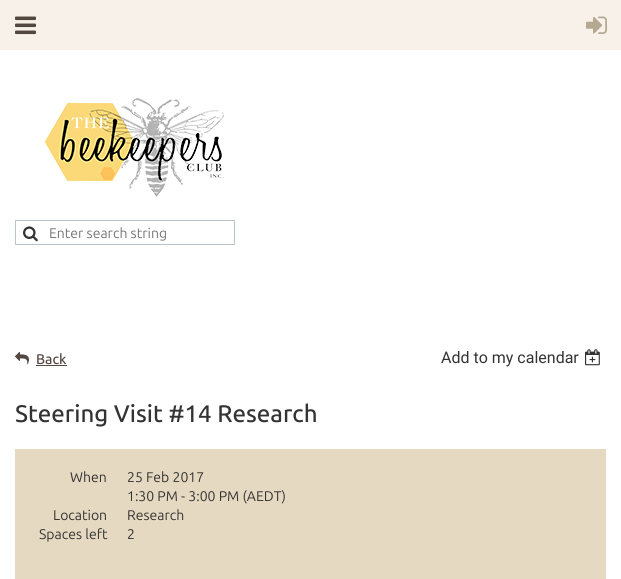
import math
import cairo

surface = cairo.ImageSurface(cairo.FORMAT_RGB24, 621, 579)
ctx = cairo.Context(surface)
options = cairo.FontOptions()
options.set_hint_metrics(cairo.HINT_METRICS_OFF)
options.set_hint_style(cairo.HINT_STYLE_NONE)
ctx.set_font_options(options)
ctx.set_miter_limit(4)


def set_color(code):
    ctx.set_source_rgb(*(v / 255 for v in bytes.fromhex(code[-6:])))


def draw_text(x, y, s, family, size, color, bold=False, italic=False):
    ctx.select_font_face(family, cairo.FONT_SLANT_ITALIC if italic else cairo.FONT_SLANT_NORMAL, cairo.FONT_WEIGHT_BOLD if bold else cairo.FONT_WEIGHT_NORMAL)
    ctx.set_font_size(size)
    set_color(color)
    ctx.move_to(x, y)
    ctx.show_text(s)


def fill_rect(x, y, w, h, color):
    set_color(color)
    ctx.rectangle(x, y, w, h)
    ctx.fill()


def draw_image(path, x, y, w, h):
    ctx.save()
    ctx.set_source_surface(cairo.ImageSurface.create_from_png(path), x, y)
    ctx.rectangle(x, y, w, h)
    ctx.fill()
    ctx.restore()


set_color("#ffffff")
ctx.paint()
fill_rect(0, 0, 621, 50, "#f8f1e9")
draw_image("assets/img1.png", 15, 16, 21, 19)
draw_image("assets/img2.png", 586, 16, 21, 18)
draw_image("assets/img3.png", 44, 98, 180, 99)
ctx.rectangle(15.5, 220.5, 219, 24)
set_color("#b8c6cd")
ctx.set_line_width(1)
ctx.stroke()
draw_image("assets/img4.png", 23, 226, 15, 16)
draw_text(49, 238, "Enter search string", "Ubuntu", 14, "#757575")
draw_image("assets/img5.png", 15, 351, 14, 14)
draw_text(36, 364, "Back", "Ubuntu Medium", 14, "#534741")
fill_rect(36, 365, 31, 1, "#534741")
draw_text(441, 363, "Add to my calendar", "Roboto", 16, "#333333")
draw_image("assets/img6.png", 585, 349, 15, 17)
draw_text(15, 422, "Steering Visit #14 Research", "Ubuntu Medium", 24, "#333333")
fill_rect(15, 449, 591, 130, "#e6d9c1")
draw_text(70, 482, "When", "Ubuntu", 14, "#333333")
draw_text(127, 482, "25 Feb 2017", "Ubuntu", 14, "#333333")
draw_text(127, 501, "1:30 PM - 3:00 PM (AEDT)", "Ubuntu", 14, "#333333")
draw_text(53, 520, "Location", "Ubuntu", 14, "#333333")
draw_text(127, 520, "Research", "Ubuntu", 14, "#333333")
draw_text(39, 539, "Spaces left", "Ubuntu", 14, "#333333")
draw_text(127, 539, "2", "Ubuntu", 14, "#333333")
surface.write_to_png("output.png")
